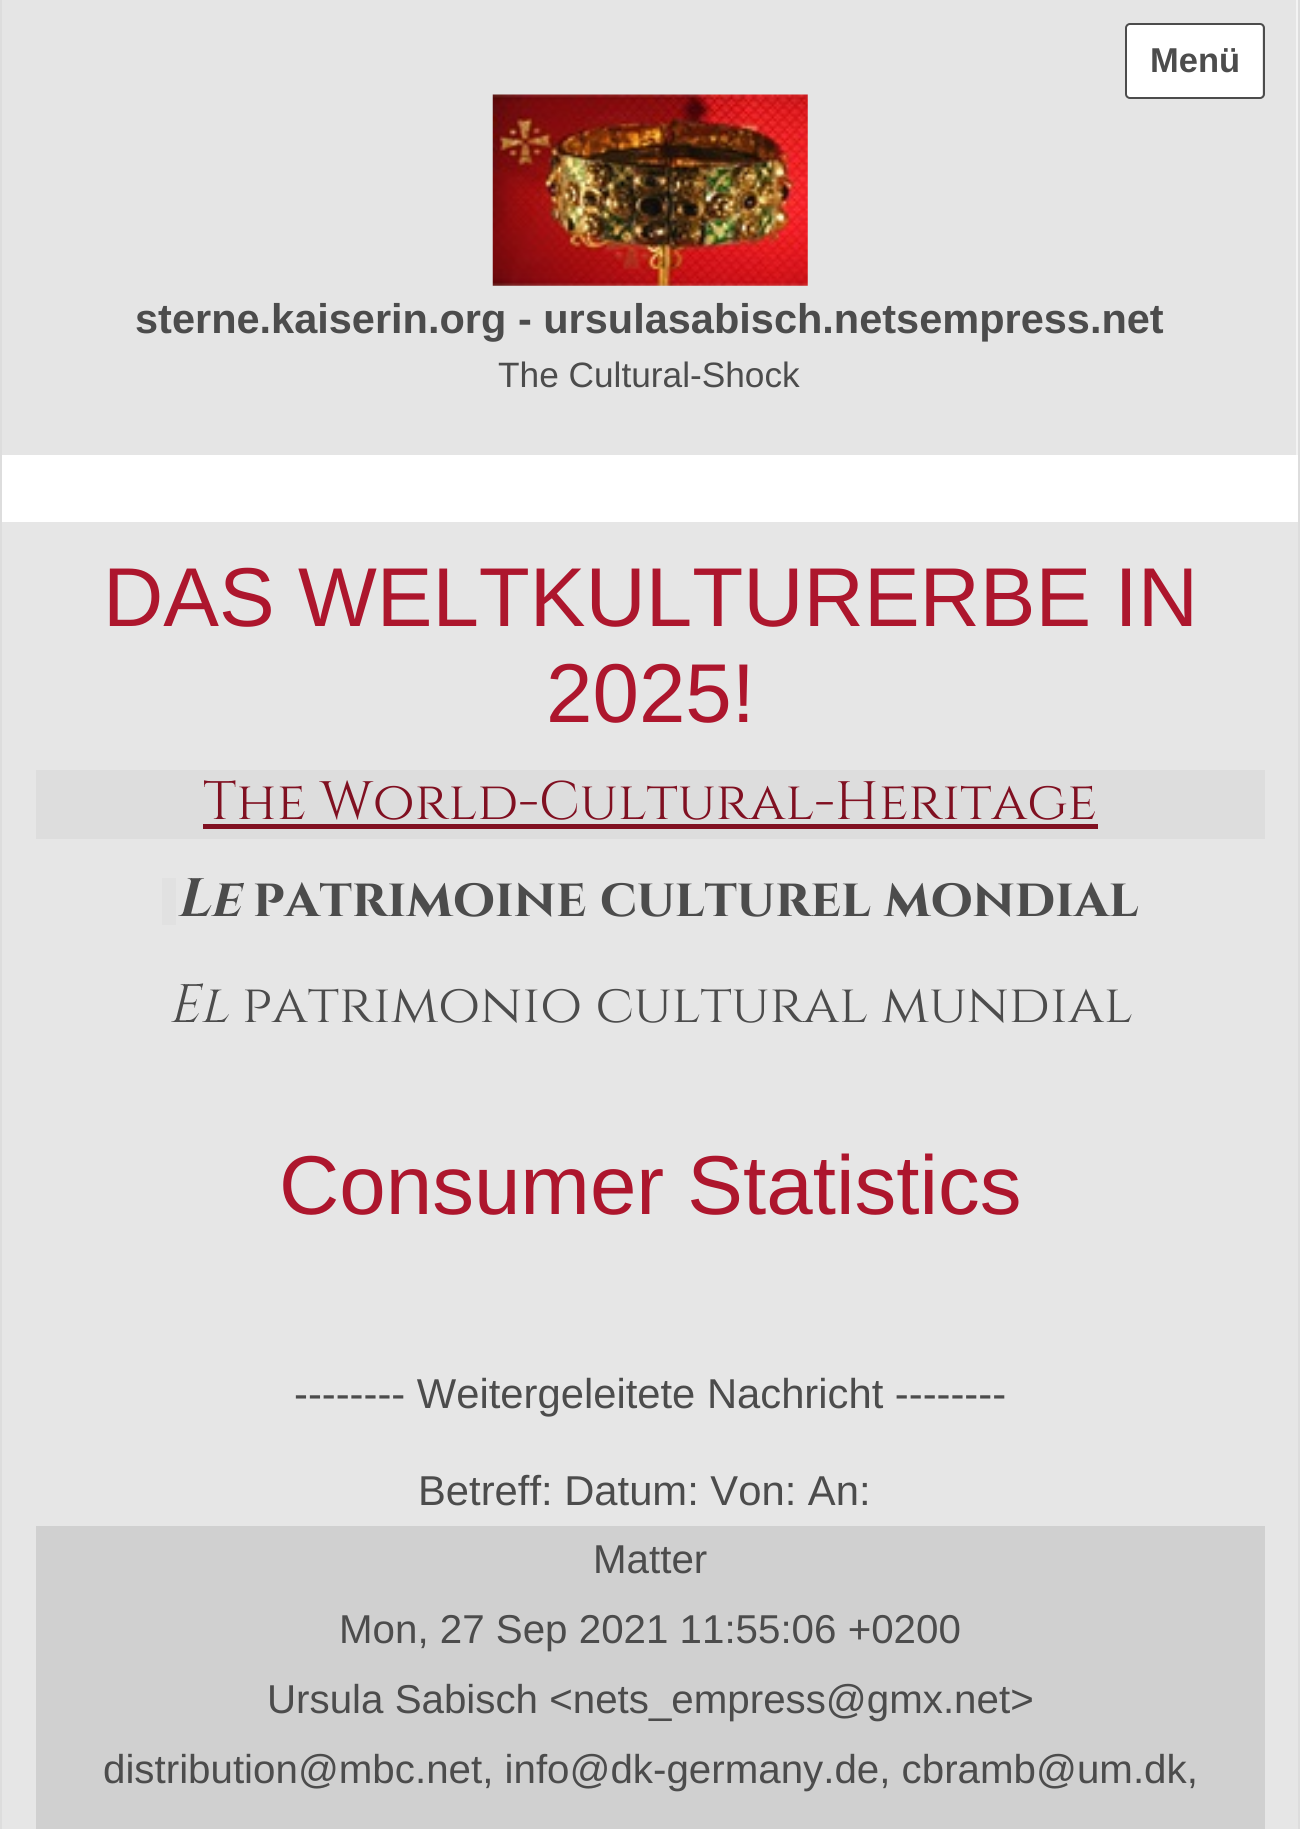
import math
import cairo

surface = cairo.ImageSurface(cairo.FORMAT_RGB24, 1300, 1829)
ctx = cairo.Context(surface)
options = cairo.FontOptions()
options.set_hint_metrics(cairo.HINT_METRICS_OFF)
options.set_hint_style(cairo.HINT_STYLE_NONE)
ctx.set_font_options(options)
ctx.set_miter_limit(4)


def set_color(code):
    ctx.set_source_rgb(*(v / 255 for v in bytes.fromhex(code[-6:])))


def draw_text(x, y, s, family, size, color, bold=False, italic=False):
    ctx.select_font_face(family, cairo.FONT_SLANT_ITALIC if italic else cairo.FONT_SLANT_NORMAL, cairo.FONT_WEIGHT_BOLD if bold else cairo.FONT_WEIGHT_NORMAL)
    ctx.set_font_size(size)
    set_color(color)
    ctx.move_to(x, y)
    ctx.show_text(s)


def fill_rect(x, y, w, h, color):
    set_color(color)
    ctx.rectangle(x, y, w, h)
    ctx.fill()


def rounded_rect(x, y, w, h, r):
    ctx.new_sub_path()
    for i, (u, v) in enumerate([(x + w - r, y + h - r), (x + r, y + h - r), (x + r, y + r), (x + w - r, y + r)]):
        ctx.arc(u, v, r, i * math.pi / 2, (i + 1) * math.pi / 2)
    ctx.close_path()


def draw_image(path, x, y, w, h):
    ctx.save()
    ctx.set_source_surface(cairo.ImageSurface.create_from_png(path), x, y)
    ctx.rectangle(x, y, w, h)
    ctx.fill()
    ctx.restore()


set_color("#ffffff")
ctx.paint()
fill_rect(1298, 0, 2, 1829, "#dddddd")
fill_rect(0, 0, 2, 1829, "#dddddd")
fill_rect(2, 0, 1294, 455, "#e5e5e5")
set_color("#ffffff")
rounded_rect(1127, 25, 135, 72, 2)
ctx.fill()
rounded_rect(1126, 24, 138, 74, 4)
set_color("#4c4c4c")
ctx.stroke()
draw_text(1150, 72, "Menü", "Liberation Sans", 34.5, "#4c4c4c", bold=True)
fill_rect(1296, 0, 2, 455, "#f3f3f3")
draw_image("assets/img1.png", 492, 94, 316, 192)
draw_text(135, 333, "sterne.kaiserin.org - ursulasabisch.netsempress.net", "Liberation Sans", 41.5, "#4c4c4c", bold=True)
draw_text(498, 387, "The Cultural-Shock", "Liberation Sans", 35.25, "#4c4c4c")
fill_rect(2, 522, 1296, 1307, "#e6e6e6")
draw_text(103, 626, "DAS WELTKULTURERBE IN", "Liberation Sans", 83.5, "#ad162d")
draw_text(546, 722, "2025!", "Liberation Sans", 83.5, "#ad162d")
fill_rect(36, 770, 1229, 69, "#dddddd")
draw_text(203, 819, "The World-Cultural-Heritage", "Cinzel", 54, "#801021")
fill_rect(203, 824, 895, 5, "#801021")
draw_text(176, 916, "Le", "Cinzel", 54, "#4c4c4c", bold=True, italic=True)
fill_rect(162, 878, 14, 47, "#e1e1e1")
draw_text(253, 916, "patrimoine culturel mondial", "Cinzel", 54, "#4c4c4c", bold=True)
draw_text(168, 1022, "El", "Cinzel", 54, "#4c4c4c", italic=True)
draw_text(242, 1022, "patrimonio cultural mundial", "Cinzel", 54, "#4c4c4c")
draw_text(279, 1214, "Consumer Statistics", "Liberation Sans", 83.5, "#ad162d")
draw_text(294, 1408, "-------- Weitergeleitete Nachricht --------", "Liberation Sans", 41.75, "#4c4c4c")
draw_text(418, 1505, "Betreff: Datum: Von: An:", "Liberation Sans", 41.75, "#4c4c4c")
fill_rect(36, 1526, 1229, 303, "#d0d0d0")
draw_text(593, 1573, "Matter", "Liberation Sans", 40.3, "#4c4c4c")
draw_text(339, 1643, "Mon, 27 Sep 2021 11:55:06 +0200", "Liberation Sans", 40.3, "#4c4c4c")
draw_text(267, 1713, "Ursula Sabisch <nets_empress@gmx.net>", "Liberation Sans", 40.3, "#4c4c4c")
draw_text(103, 1783, "distribution@mbc.net, info@dk-germany.de, cbramb@um.dk,", "Liberation Sans", 40.3, "#4c4c4c")
surface.write_to_png("output.png")
